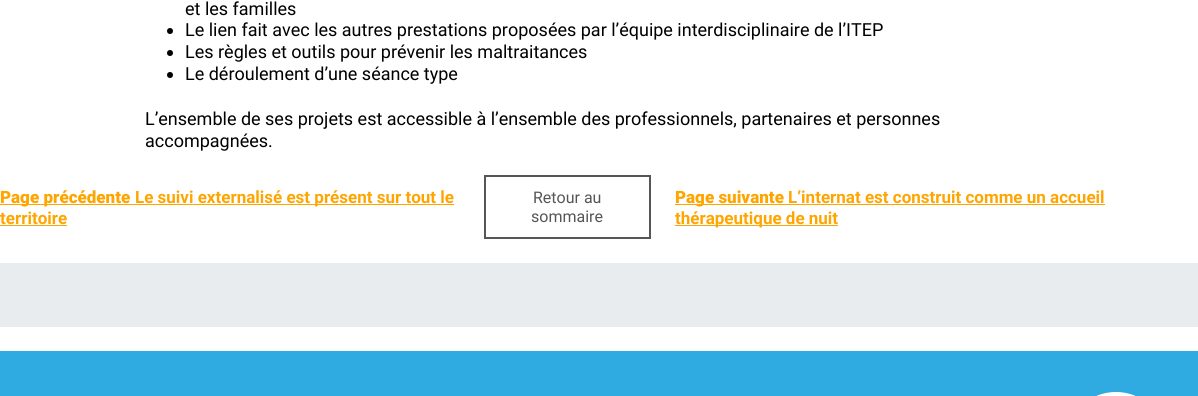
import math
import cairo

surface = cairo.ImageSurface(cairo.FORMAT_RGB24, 1198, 396)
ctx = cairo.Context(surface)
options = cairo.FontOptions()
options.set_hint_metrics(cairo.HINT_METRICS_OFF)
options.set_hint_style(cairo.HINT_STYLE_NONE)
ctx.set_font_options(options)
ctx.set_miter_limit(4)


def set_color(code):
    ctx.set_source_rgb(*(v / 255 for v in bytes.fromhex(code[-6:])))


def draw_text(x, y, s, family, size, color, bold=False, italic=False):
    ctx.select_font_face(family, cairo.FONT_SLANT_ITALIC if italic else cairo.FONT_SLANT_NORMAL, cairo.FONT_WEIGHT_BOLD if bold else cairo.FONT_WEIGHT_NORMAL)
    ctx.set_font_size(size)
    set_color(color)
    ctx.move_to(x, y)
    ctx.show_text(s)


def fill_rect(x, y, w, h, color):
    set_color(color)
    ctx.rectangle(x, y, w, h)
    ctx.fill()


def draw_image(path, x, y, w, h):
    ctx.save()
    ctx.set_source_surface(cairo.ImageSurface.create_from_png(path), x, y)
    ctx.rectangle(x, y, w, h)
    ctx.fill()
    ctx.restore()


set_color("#ffffff")
ctx.paint()
draw_text(185, 15, "et les familles", "Roboto", 18, "#000000")
ctx.new_path()
ctx.arc(170, 31, 3, 0, 2 * math.pi)
ctx.fill()
draw_text(185, 36, "Le lien fait avec les autres prestations proposées par l’équipe interdisciplinaire de l’ITEP", "Roboto", 18, "#000000")
ctx.new_path()
ctx.arc(170, 53, 3, 0, 2 * math.pi)
ctx.fill()
draw_text(185, 58, "Les règles et outils pour prévenir les maltraitances", "Roboto", 18, "#000000")
ctx.new_path()
ctx.arc(170, 75, 3, 0, 2 * math.pi)
ctx.fill()
draw_text(185, 80, "Le déroulement d’une séance type", "Roboto", 18, "#000000")
draw_text(145, 125, "L’ensemble de ses projets est accessible à l’ensemble des professionnels, partenaires et personnes", "Roboto", 18, "#000000")
draw_text(145, 147, "accompagnées.", "Roboto", 18, "#000000")
fill_rect(0, 204, 454, 1, "#ffa500")
draw_text(0, 203, "Page précédente", "Roboto Black", 17, "#ffa500")
draw_text(135, 203, "Le suivi externalisé est présent sur tout le", "Roboto", 17, "#ffa500", bold=True)
draw_text(0, 224, "territoire", "Roboto", 17, "#ffa500", bold=True)
fill_rect(0, 225, 67, 1, "#ffa500")
ctx.rectangle(485, 176, 165, 62)
set_color("#565656")
ctx.stroke()
draw_text(533, 203, "Retour au", "Roboto", 16, "#565656")
draw_text(531, 222, "sommaire", "Roboto", 16, "#565656")
fill_rect(675, 204, 430, 1, "#ffa500")
draw_text(675, 203, "Page suivante", "Roboto Black", 17, "#ffa500")
draw_text(788, 203, "L’internat est construit comme un accueil", "Roboto", 17, "#ffa500", bold=True)
fill_rect(675, 225, 163, 1, "#ffa500")
draw_text(675, 224, "thérapeutique de nuit", "Roboto", 17, "#ffa500", bold=True)
fill_rect(0, 263, 1198, 64, "#e8ecef")
fill_rect(0, 351, 1198, 45, "#30abe2")
draw_image("assets/img1.png", 1096, 392, 40, 4)
surface.write_to_png("output.png")
